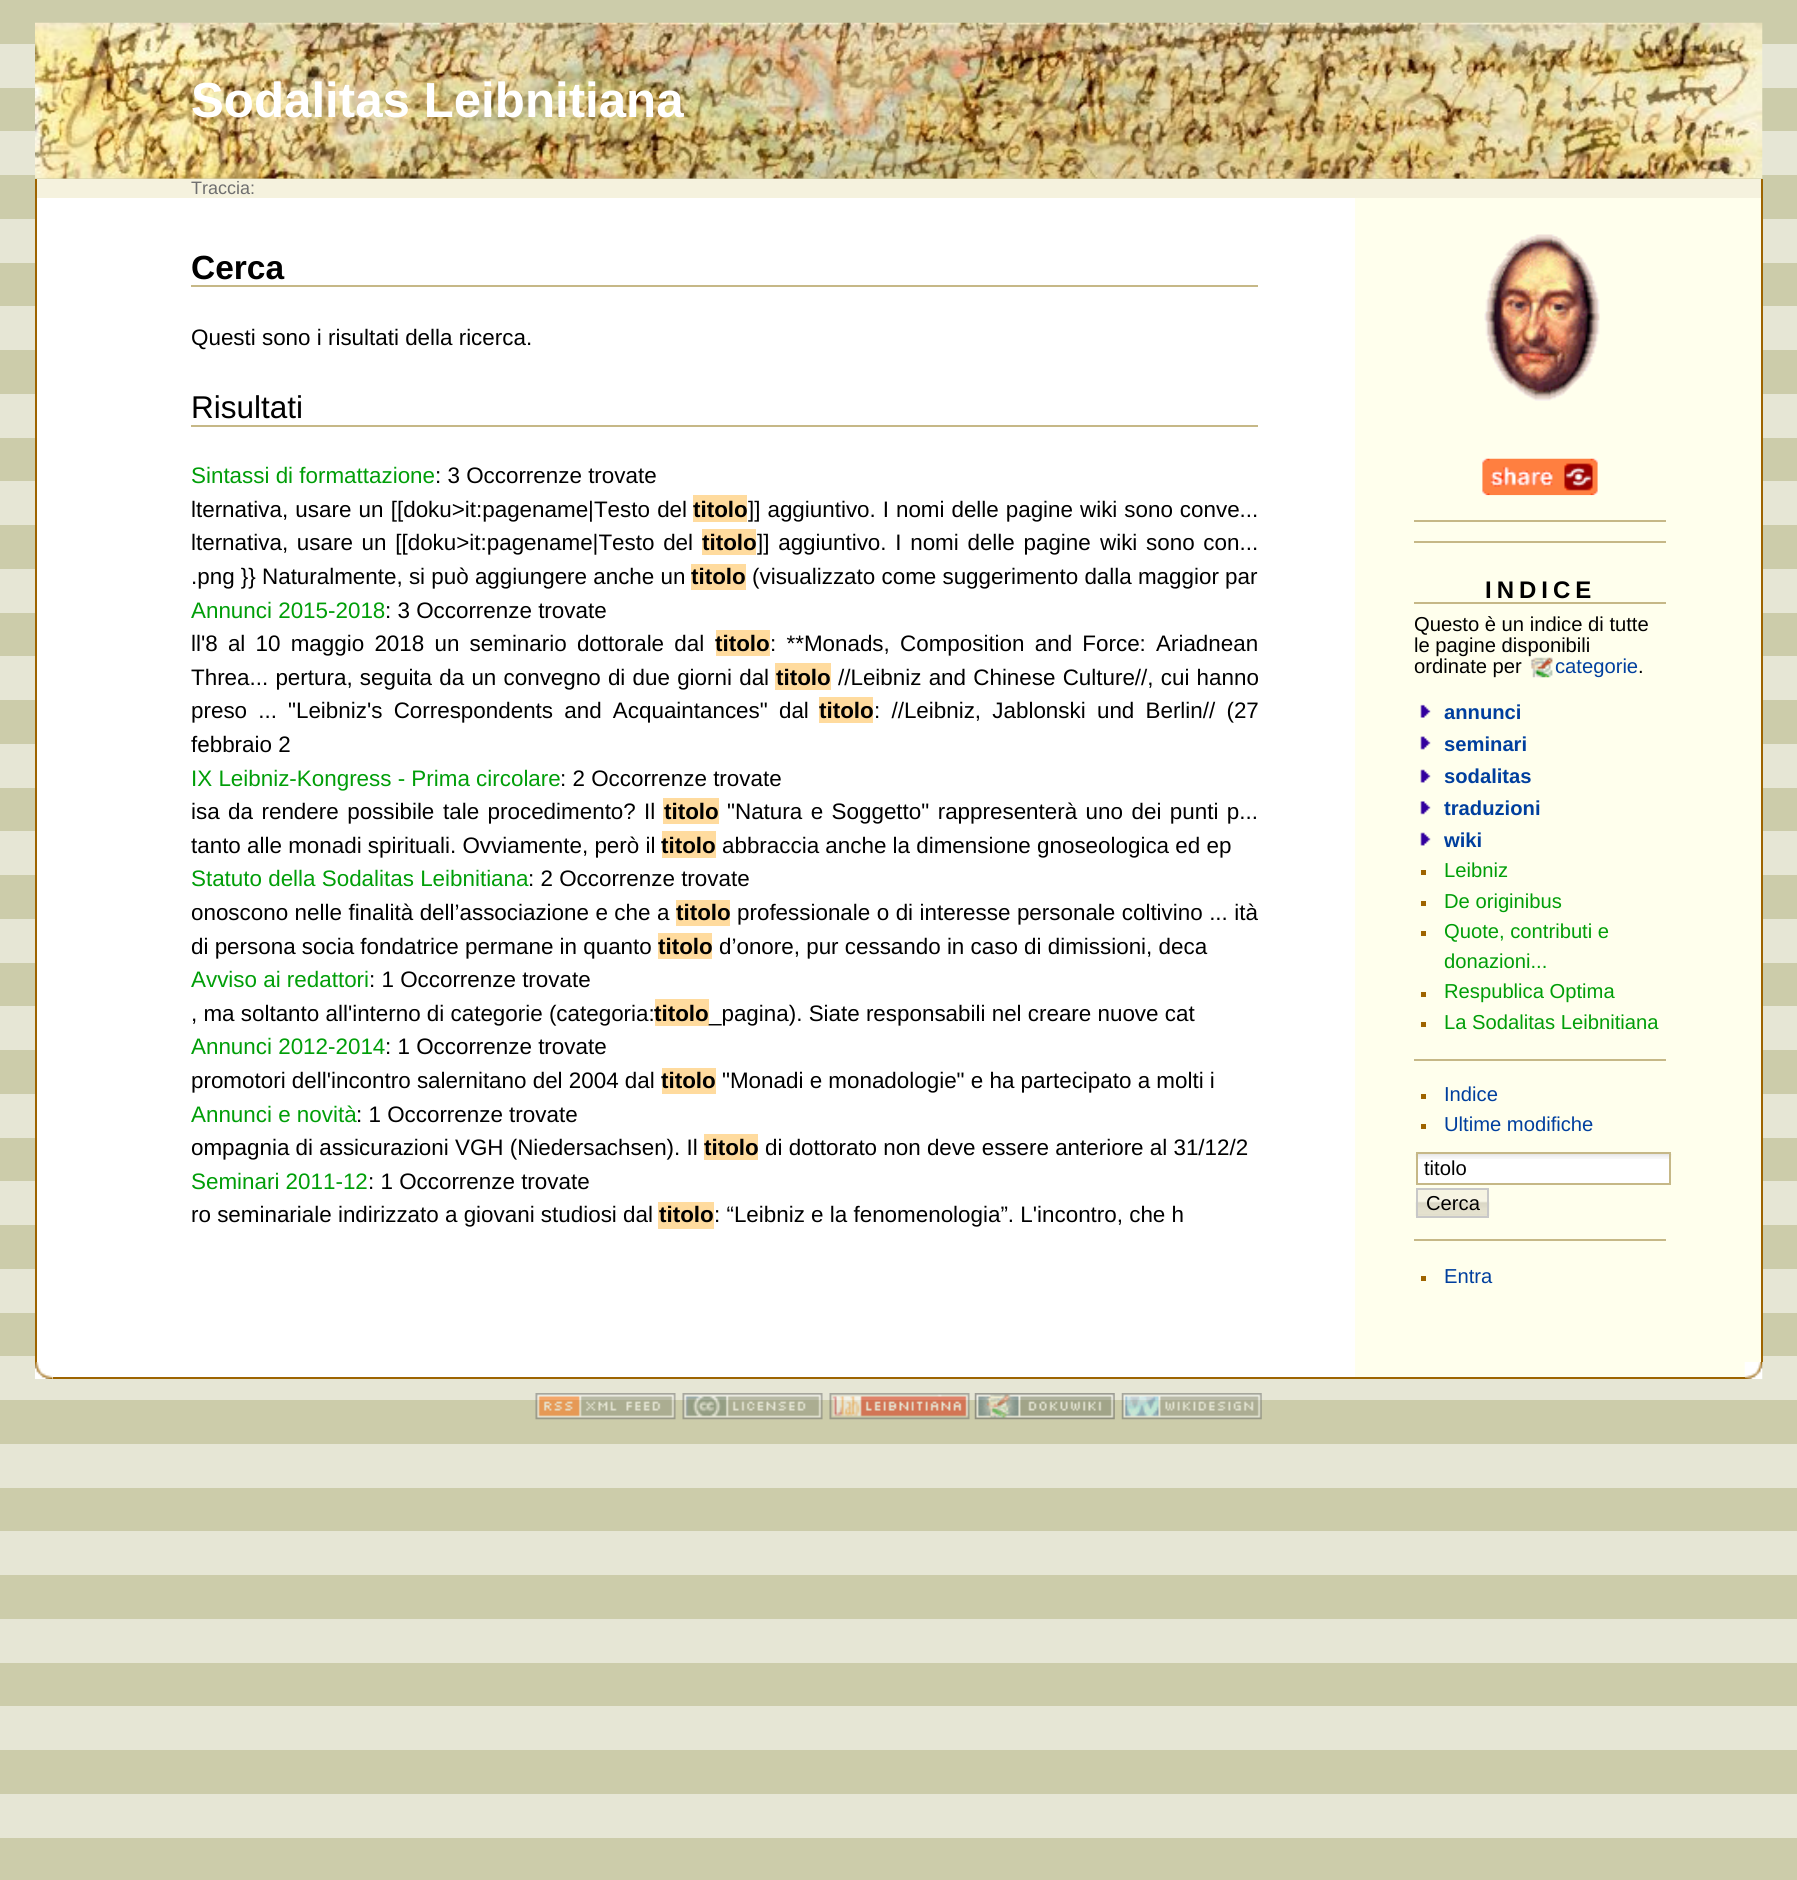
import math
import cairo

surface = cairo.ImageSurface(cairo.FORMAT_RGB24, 1797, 1880)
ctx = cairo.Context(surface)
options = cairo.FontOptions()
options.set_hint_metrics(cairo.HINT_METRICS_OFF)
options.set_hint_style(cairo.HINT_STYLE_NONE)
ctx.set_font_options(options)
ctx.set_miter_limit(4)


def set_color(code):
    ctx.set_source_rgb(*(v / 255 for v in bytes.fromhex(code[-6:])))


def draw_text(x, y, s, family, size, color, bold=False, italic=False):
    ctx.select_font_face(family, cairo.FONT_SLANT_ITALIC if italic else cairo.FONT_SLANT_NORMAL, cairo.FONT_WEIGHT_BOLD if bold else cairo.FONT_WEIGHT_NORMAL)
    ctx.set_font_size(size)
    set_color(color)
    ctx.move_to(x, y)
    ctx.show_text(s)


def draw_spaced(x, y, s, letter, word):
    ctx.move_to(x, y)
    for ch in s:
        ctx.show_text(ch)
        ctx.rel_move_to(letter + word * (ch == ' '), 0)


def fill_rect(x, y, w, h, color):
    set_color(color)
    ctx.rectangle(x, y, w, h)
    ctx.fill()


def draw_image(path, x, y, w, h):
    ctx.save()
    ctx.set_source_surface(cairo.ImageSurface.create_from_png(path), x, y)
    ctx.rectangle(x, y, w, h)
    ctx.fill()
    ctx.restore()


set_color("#ccccaa")
ctx.paint()
draw_image("assets/img1.png", 0, 44, 1797, 1794)
draw_image("assets/img2.png", 35, 22, 1728, 157)
draw_text(191, 117, "Sodalitas Leibnitiana", "Liberation Sans", 49.25, "#ffffff", bold=True)
fill_rect(1761, 179, 2, 1183, "#9e6400")
fill_rect(35, 179, 2, 1183, "#9e6400")
fill_rect(37, 179, 1724, 19, "#f5f2de")
draw_text(191, 194, "Traccia:", "Liberation Sans", 18, "#6f6f6f")
fill_rect(37, 198, 1318, 1164, "#ffffff")
fill_rect(191, 285, 1067, 2, "#c6b887")
draw_text(191, 279, "Cerca", "Liberation Sans", 33.5, "#000000", bold=True)
draw_text(191, 345, "Questi sono i risultati della ricerca.", "Liberation Sans", 22.4, "#000000")
fill_rect(191, 425, 1067, 2, "#c6b887")
draw_text(191, 418, "Risultati", "Liberation Sans", 31.5, "#000000")
draw_text(191, 483, "Sintassi di formattazione", "Liberation Sans", 22.4, "#009e08")
draw_text(435, 483, ": 3 Occorrenze trovate", "Liberation Sans", 22.4, "#000000")
draw_spaced(191, 517, "lternativa, usare un [[doku>it:pagename|Testo del", 0, 1)
fill_rect(693, 495, 54, 27, "#ffdb9e")
draw_text(693, 517, "titolo", "Liberation Sans", 22.4, "#000000", bold=True)
ctx.select_font_face("Liberation Sans")
draw_spaced(748, 517, "]] aggiuntivo. I nomi delle pagine wiki sono conve...", 0, 0.75)
draw_spaced(191, 550, "lternativa, usare un [[doku>it:pagename|Testo del", 0, 2.5)
fill_rect(702, 529, 54, 26, "#ffdb9e")
draw_text(702, 550, "titolo", "Liberation Sans", 22.4, "#000000", bold=True)
ctx.select_font_face("Liberation Sans")
draw_spaced(757, 550, "]] aggiuntivo. I nomi delle pagine", 0, 2.5)
draw_spaced(1100, 550, "wiki sono con...", 0, 2.5)
draw_text(191, 584, ".png }} Naturalmente, si può aggiungere anche un", "Liberation Sans", 22.4, "#000000")
fill_rect(691, 564, 55, 26, "#ffdb9e")
draw_text(691, 584, "titolo", "Liberation Sans", 22.4, "#000000", bold=True)
draw_text(752, 584, "(visualizzato come suggerimento dalla maggior par", "Liberation Sans", 22.4, "#000000")
draw_text(191, 618, "Annunci 2015-2018", "Liberation Sans", 22.4, "#009e08")
draw_text(385, 618, ": 3 Occorrenze trovate", "Liberation Sans", 22.4, "#000000")
draw_spaced(191, 651, "ll'8 al 10 maggio 2018 un seminario dottorale dal", 0, 4)
fill_rect(716, 630, 54, 26, "#ffdb9e")
draw_text(715, 651, "titolo", "Liberation Sans", 22.4, "#000000", bold=True)
ctx.select_font_face("Liberation Sans")
draw_spaced(770, 651, ": **Monads, Composition and Force: Ariadnean", 0, 4)
draw_spaced(191, 685, "Threa... pertura, seguita da un convegno di due giorni dal", 0, 1)
fill_rect(775, 663, 56, 27, "#ffdb9e")
draw_text(776, 685, "titolo", "Liberation Sans", 22.4, "#000000", bold=True)
ctx.select_font_face("Liberation Sans")
draw_spaced(838, 685, "//Leibniz and Chinese Culture//, cui hanno", 0, 1)
draw_spaced(191, 718, "preso ...", 0, 5)
draw_spaced(288, 718, "\"Leibniz's Correspondents and Acquaintances\" dal", 0, 5)
fill_rect(819, 697, 54, 26, "#ffdb9e")
draw_text(819, 718, "titolo", "Liberation Sans", 22.4, "#000000", bold=True)
ctx.select_font_face("Liberation Sans")
draw_spaced(874, 718, ": //Leibniz, Jablonski und Berlin// (27", 0, 5)
draw_text(191, 752, "febbraio 2", "Liberation Sans", 22.4, "#000000")
draw_text(191, 786, "IX Leibniz-Kongress - Prima circolare", "Liberation Sans", 22.4, "#009e08")
draw_text(560, 786, ": 2 Occorrenze trovate", "Liberation Sans", 22.4, "#000000")
draw_spaced(191, 819, "isa da rendere possibile", 0, 2.25)
draw_spaced(443, 819, "tale procedimento?", 0, 2.25)
draw_text(644, 819, "Il", "Liberation Sans", 22.4, "#000000")
fill_rect(663, 798, 56, 26, "#ffdb9e")
draw_text(664, 819, "titolo", "Liberation Sans", 22.4, "#000000", bold=True)
ctx.select_font_face("Liberation Sans")
draw_spaced(727, 819, "\"Natura e Soggetto\" rappresenterà uno dei punti p...", 0, 2.25)
draw_text(191, 853, "tanto alle monadi spirituali. Ovviamente, però il", "Liberation Sans", 22.4, "#000000")
fill_rect(662, 831, 54, 27, "#ffdb9e")
draw_text(661, 853, "titolo", "Liberation Sans", 22.4, "#000000", bold=True)
draw_text(722, 853, "abbraccia anche la dimensione gnoseologica ed ep", "Liberation Sans", 22.4, "#000000")
draw_text(191, 886, "Statuto della Sodalitas Leibnitiana", "Liberation Sans", 22.4, "#009e08")
draw_text(528, 886, ": 2 Occorrenze trovate", "Liberation Sans", 22.4, "#000000")
draw_spaced(191, 920, "onoscono nelle finalità dell’associazione e che a", 0, 0.25)
fill_rect(676, 900, 54, 26, "#ffdb9e")
draw_text(676, 920, "titolo", "Liberation Sans", 22.4, "#000000", bold=True)
ctx.select_font_face("Liberation Sans")
draw_spaced(737, 920, "professionale o di interesse personale coltivino ... ità", 0, 0.25)
draw_text(191, 954, "di persona socia fondatrice permane in quanto", "Liberation Sans", 22.4, "#000000")
fill_rect(658, 933, 54, 26, "#ffdb9e")
draw_text(658, 954, "titolo", "Liberation Sans", 22.4, "#000000", bold=True)
draw_text(719, 954, "d’onore, pur cessando in caso di dimissioni, deca", "Liberation Sans", 22.4, "#000000")
draw_text(191, 987, "Avviso ai redattori", "Liberation Sans", 22.4, "#009e08")
draw_text(369, 987, ": 1 Occorrenze trovate", "Liberation Sans", 22.4, "#000000")
draw_text(191, 1021, ", ma soltanto all'interno di categorie (categoria:", "Liberation Sans", 22.4, "#000000")
fill_rect(655, 999, 54, 27, "#ffdb9e")
draw_text(654, 1021, "titolo", "Liberation Sans", 22.4, "#000000", bold=True)
draw_text(709, 1021, "_pagina). Siate responsabili nel creare nuove cat", "Liberation Sans", 22.4, "#000000")
draw_text(191, 1054, "Annunci 2012-2014", "Liberation Sans", 22.4, "#009e08")
draw_text(385, 1054, ": 1 Occorrenze trovate", "Liberation Sans", 22.4, "#000000")
draw_text(191, 1088, "promotori dell'incontro salernitano del 2004 dal", "Liberation Sans", 22.4, "#000000")
fill_rect(662, 1068, 54, 26, "#ffdb9e")
draw_text(661, 1088, "titolo", "Liberation Sans", 22.4, "#000000", bold=True)
draw_text(722, 1088, "\"Monadi e monadologie\" e ha partecipato a molti i", "Liberation Sans", 22.4, "#000000")
draw_text(191, 1122, "Annunci e novità", "Liberation Sans", 22.4, "#009e08")
draw_text(356, 1122, ": 1 Occorrenze trovate", "Liberation Sans", 22.4, "#000000")
draw_text(191, 1155, "ompagnia di assicurazioni VGH (Niedersachsen). Il", "Liberation Sans", 22.4, "#000000")
fill_rect(704, 1134, 54, 26, "#ffdb9e")
draw_text(704, 1155, "titolo", "Liberation Sans", 22.4, "#000000", bold=True)
draw_text(765, 1155, "di dottorato non deve essere anteriore al 31/12/2", "Liberation Sans", 22.4, "#000000")
draw_text(191, 1189, "Seminari 2011-12", "Liberation Sans", 22.4, "#009e08")
draw_text(368, 1189, ": 1 Occorrenze trovate", "Liberation Sans", 22.4, "#000000")
draw_text(191, 1222, "ro seminariale indirizzato a giovani studiosi dal", "Liberation Sans", 22.4, "#000000")
fill_rect(658, 1202, 56, 27, "#ffdb9e")
draw_text(659, 1222, "titolo", "Liberation Sans", 22.4, "#000000", bold=True)
draw_text(714, 1222, ": “Leibniz e la fenomenologia”. L'incontro, che h", "Liberation Sans", 22.4, "#000000")
fill_rect(1355, 198, 406, 1164, "#ffffed")
draw_image("assets/img3.png", 1484, 234, 116, 167)
draw_image("assets/img4.png", 1482, 458, 116, 38)
fill_rect(1414, 520, 252, 2, "#c6b887")
fill_rect(1414, 541, 252, 2, "#c6b887")
fill_rect(1414, 602, 252, 2, "#c6b887")
ctx.select_font_face("Liberation Sans", cairo.FONT_SLANT_NORMAL, cairo.FONT_WEIGHT_BOLD)
ctx.set_font_size(24)
set_color("#000000")
draw_spaced(1485, 598, "INDICE", 5, 0)
draw_text(1414, 631, "Questo è un indice di tutte", "Liberation Sans", 20.2, "#000000")
draw_text(1414, 652, "le pagine disponibili", "Liberation Sans", 20.2, "#000000")
draw_text(1414, 673, "ordinate per", "Liberation Sans", 20.2, "#000000")
draw_image("assets/img5.png", 1530, 657, 23, 21)
draw_text(1555, 673, "categorie", "Liberation Sans", 20.2, "#003f9e")
draw_text(1638, 673, ".", "Liberation Sans", 20.2, "#000000")
draw_image("assets/img6.png", 1420, 704, 11, 14)
draw_text(1444, 719, "annunci", "Liberation Sans", 20.2, "#003f9e", bold=True)
draw_image("assets/img7.png", 1420, 736, 11, 14)
draw_text(1444, 751, "seminari", "Liberation Sans", 20.2, "#003f9e", bold=True)
draw_image("assets/img8.png", 1420, 769, 11, 14)
draw_text(1444, 783, "sodalitas", "Liberation Sans", 20.2, "#003f9e", bold=True)
draw_image("assets/img9.png", 1420, 801, 11, 14)
draw_text(1444, 815, "traduzioni", "Liberation Sans", 20.2, "#003f9e", bold=True)
draw_image("assets/img8.png", 1420, 832, 11, 14)
draw_text(1444, 847, "wiki", "Liberation Sans", 20.2, "#003f9e", bold=True)
fill_rect(1421, 870, 5, 5, "#9e6400")
draw_text(1444, 877, "Leibniz", "Liberation Sans", 20.2, "#009e08")
fill_rect(1421, 901, 5, 5, "#9e6400")
draw_text(1444, 908, "De originibus", "Liberation Sans", 20.2, "#009e08")
fill_rect(1421, 931, 5, 5, "#9e6400")
draw_text(1444, 938, "Quote, contributi e", "Liberation Sans", 20.2, "#009e08")
draw_text(1444, 968, "donazioni...", "Liberation Sans", 20.2, "#009e08")
fill_rect(1421, 992, 5, 5, "#9e6400")
draw_text(1444, 998, "Respublica Optima", "Liberation Sans", 20.2, "#009e08")
fill_rect(1421, 1022, 5, 5, "#9e6400")
draw_text(1444, 1029, "La Sodalitas Leibnitiana", "Liberation Sans", 20.2, "#009e08")
fill_rect(1414, 1059, 252, 2, "#c6b887")
fill_rect(1421, 1094, 5, 5, "#9e6400")
draw_text(1444, 1101, "Indice", "Liberation Sans", 20.2, "#003f9e")
fill_rect(1421, 1124, 5, 5, "#9e6400")
draw_text(1444, 1131, "Ultime modifiche", "Liberation Sans", 20.2, "#003f9e")
fill_rect(1418, 1154, 251, 29, "#ffffff")
draw_image("assets/img10.png", 1415, 1154, 257, 5)
ctx.rectangle(1417, 1153, 253, 31)
set_color("#c6b887")
ctx.stroke()
draw_text(1424, 1175, "titolo", "Liberation Sans", 20.2, "#000000")
fill_rect(1418, 1190, 69, 26, "#f5f2de")
draw_image("assets/img11.png", 1415, 1188, 75, 28)
ctx.rectangle(1417, 1189, 71, 28)
set_color("#c8c8c8")
ctx.stroke()
draw_text(1426, 1210, "Cerca", "Liberation Sans", 20.2, "#000000")
fill_rect(1414, 1239, 252, 2, "#c6b887")
fill_rect(1421, 1276, 5, 5, "#9e6400")
draw_text(1444, 1283, "Entra", "Liberation Sans", 20.2, "#003f9e")
fill_rect(52, 1362, 1303, 17, "#ffffff")
draw_image("assets/img12.png", 35, 1362, 18, 17)
fill_rect(53, 1377, 1302, 2, "#9e6400")
fill_rect(1355, 1362, 390, 15, "#ffffed")
draw_image("assets/img13.png", 1744, 1362, 19, 17)
fill_rect(1355, 1377, 390, 2, "#9e6400")
draw_image("assets/img14.png", 535, 1393, 141, 27)
draw_image("assets/img15.png", 682, 1393, 141, 27)
draw_image("assets/img16.png", 829, 1393, 141, 27)
draw_image("assets/img17.png", 974, 1393, 141, 27)
draw_image("assets/img18.png", 1121, 1393, 141, 27)
surface.write_to_png("output.png")
